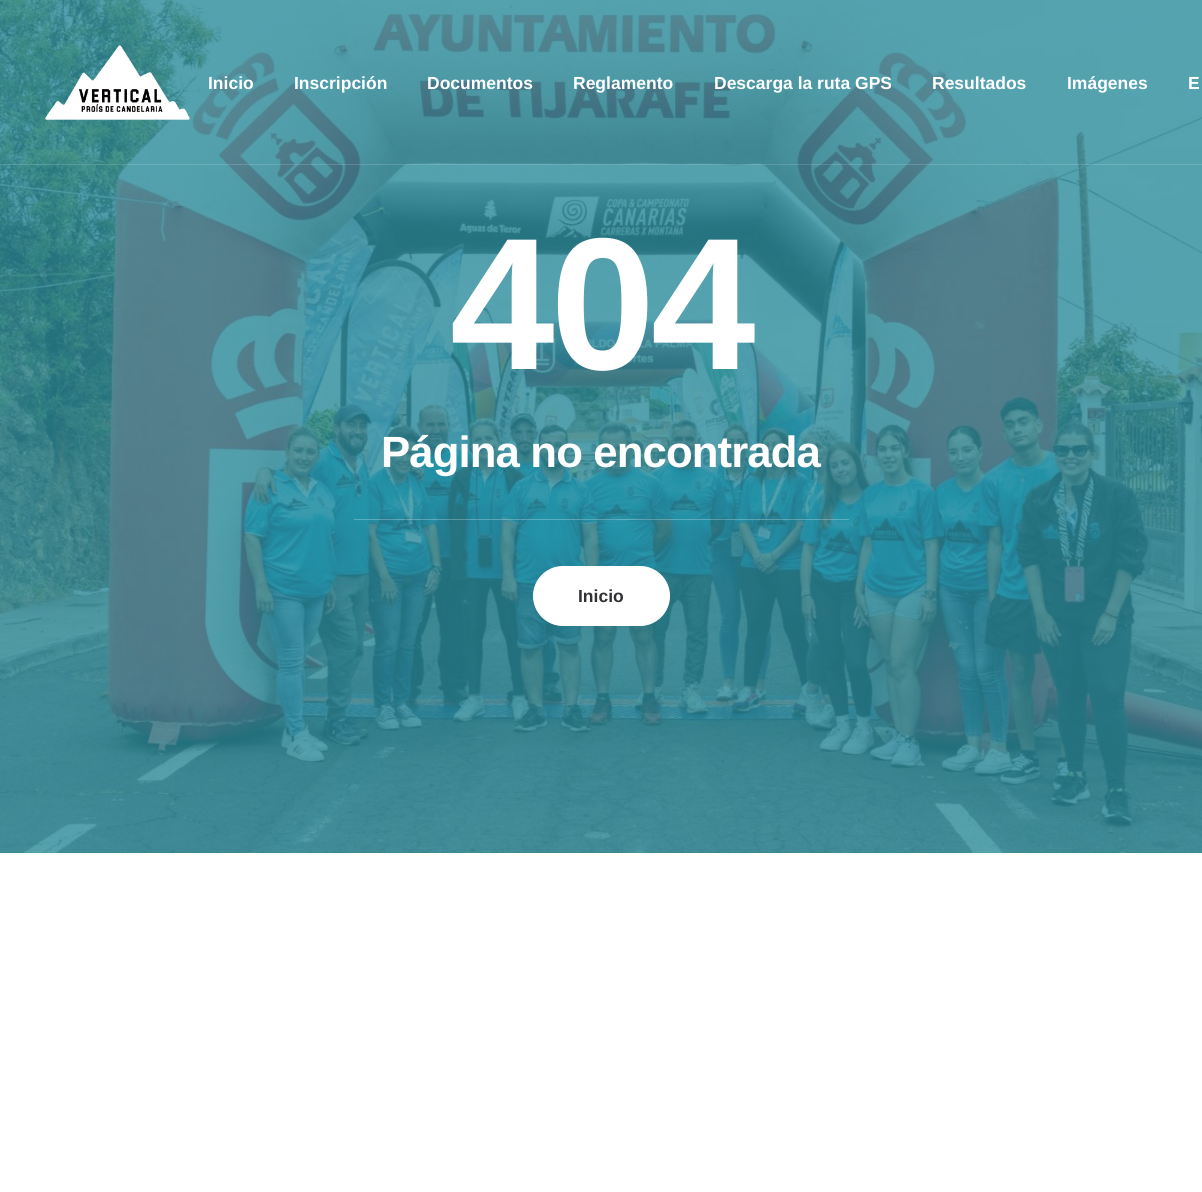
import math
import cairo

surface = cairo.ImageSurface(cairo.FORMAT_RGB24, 1202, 1192)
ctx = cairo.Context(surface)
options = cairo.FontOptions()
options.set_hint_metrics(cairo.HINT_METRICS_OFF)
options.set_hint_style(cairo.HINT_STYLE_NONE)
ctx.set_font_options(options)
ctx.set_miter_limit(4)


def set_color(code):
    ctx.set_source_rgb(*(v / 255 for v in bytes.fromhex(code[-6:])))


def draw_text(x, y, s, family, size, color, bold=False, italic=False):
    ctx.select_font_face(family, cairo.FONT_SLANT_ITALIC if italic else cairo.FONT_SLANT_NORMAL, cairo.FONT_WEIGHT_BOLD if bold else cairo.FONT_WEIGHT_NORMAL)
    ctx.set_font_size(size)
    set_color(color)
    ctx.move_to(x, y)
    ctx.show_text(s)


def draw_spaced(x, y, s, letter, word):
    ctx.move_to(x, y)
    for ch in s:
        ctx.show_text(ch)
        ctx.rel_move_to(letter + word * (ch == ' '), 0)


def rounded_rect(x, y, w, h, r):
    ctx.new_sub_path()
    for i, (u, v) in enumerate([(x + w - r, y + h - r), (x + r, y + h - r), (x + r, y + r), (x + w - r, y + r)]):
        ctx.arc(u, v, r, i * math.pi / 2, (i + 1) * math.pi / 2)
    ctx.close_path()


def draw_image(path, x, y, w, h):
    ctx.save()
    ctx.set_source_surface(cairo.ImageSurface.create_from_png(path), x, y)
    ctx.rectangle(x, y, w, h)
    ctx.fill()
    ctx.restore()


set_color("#ffffff")
ctx.paint()
draw_image("assets/img2.png", 0, 0, 1202, 853)
draw_image("assets/img1.png", 45, 45, 145, 75)
draw_text(208, 89, "Inicio", "Liberation Sans", 17.5, "#ffffff", bold=True)
draw_text(294, 89, "Inscripción", "Liberation Sans", 17.5, "#ffffff", bold=True)
draw_text(427, 89, "Documentos", "Liberation Sans", 17.5, "#ffffff", bold=True)
draw_text(573, 89, "Reglamento", "Liberation Sans", 17.5, "#ffffff", bold=True)
draw_text(714, 89, "Descarga la ruta GPS", "Liberation Sans", 17.5, "#ffffff", bold=True)
draw_text(932, 89, "Resultados", "Liberation Sans", 17.5, "#ffffff", bold=True)
draw_text(1067, 89, "Imágenes", "Liberation Sans", 17.5, "#ffffff", bold=True)
draw_text(1188, 89, "E", "Liberation Sans", 17.5, "#ffffff", bold=True)
ctx.set_source_rgba(1, 1, 1, 0.15)
ctx.rectangle(0, 164, 1202, 1)
ctx.fill()
ctx.set_font_size(188)
set_color("#ffffff")
draw_spaced(450, 369, "404", -4, 0)
ctx.set_font_size(43.75)
draw_spaced(381, 467, "Página no encontrada", -0.9, 0)
ctx.set_source_rgba(1, 1, 1, 0.25)
ctx.rectangle(354, 519, 495, 1)
ctx.fill()
set_color("#ffffff")
rounded_rect(533.5, 566.5, 136, 59, 29.5)
ctx.fill_preserve()
ctx.set_line_width(1)
ctx.stroke()
draw_text(578, 602, "Inicio", "Liberation Sans", 17.5, "#303133", bold=True)
surface.write_to_png("output.png")
